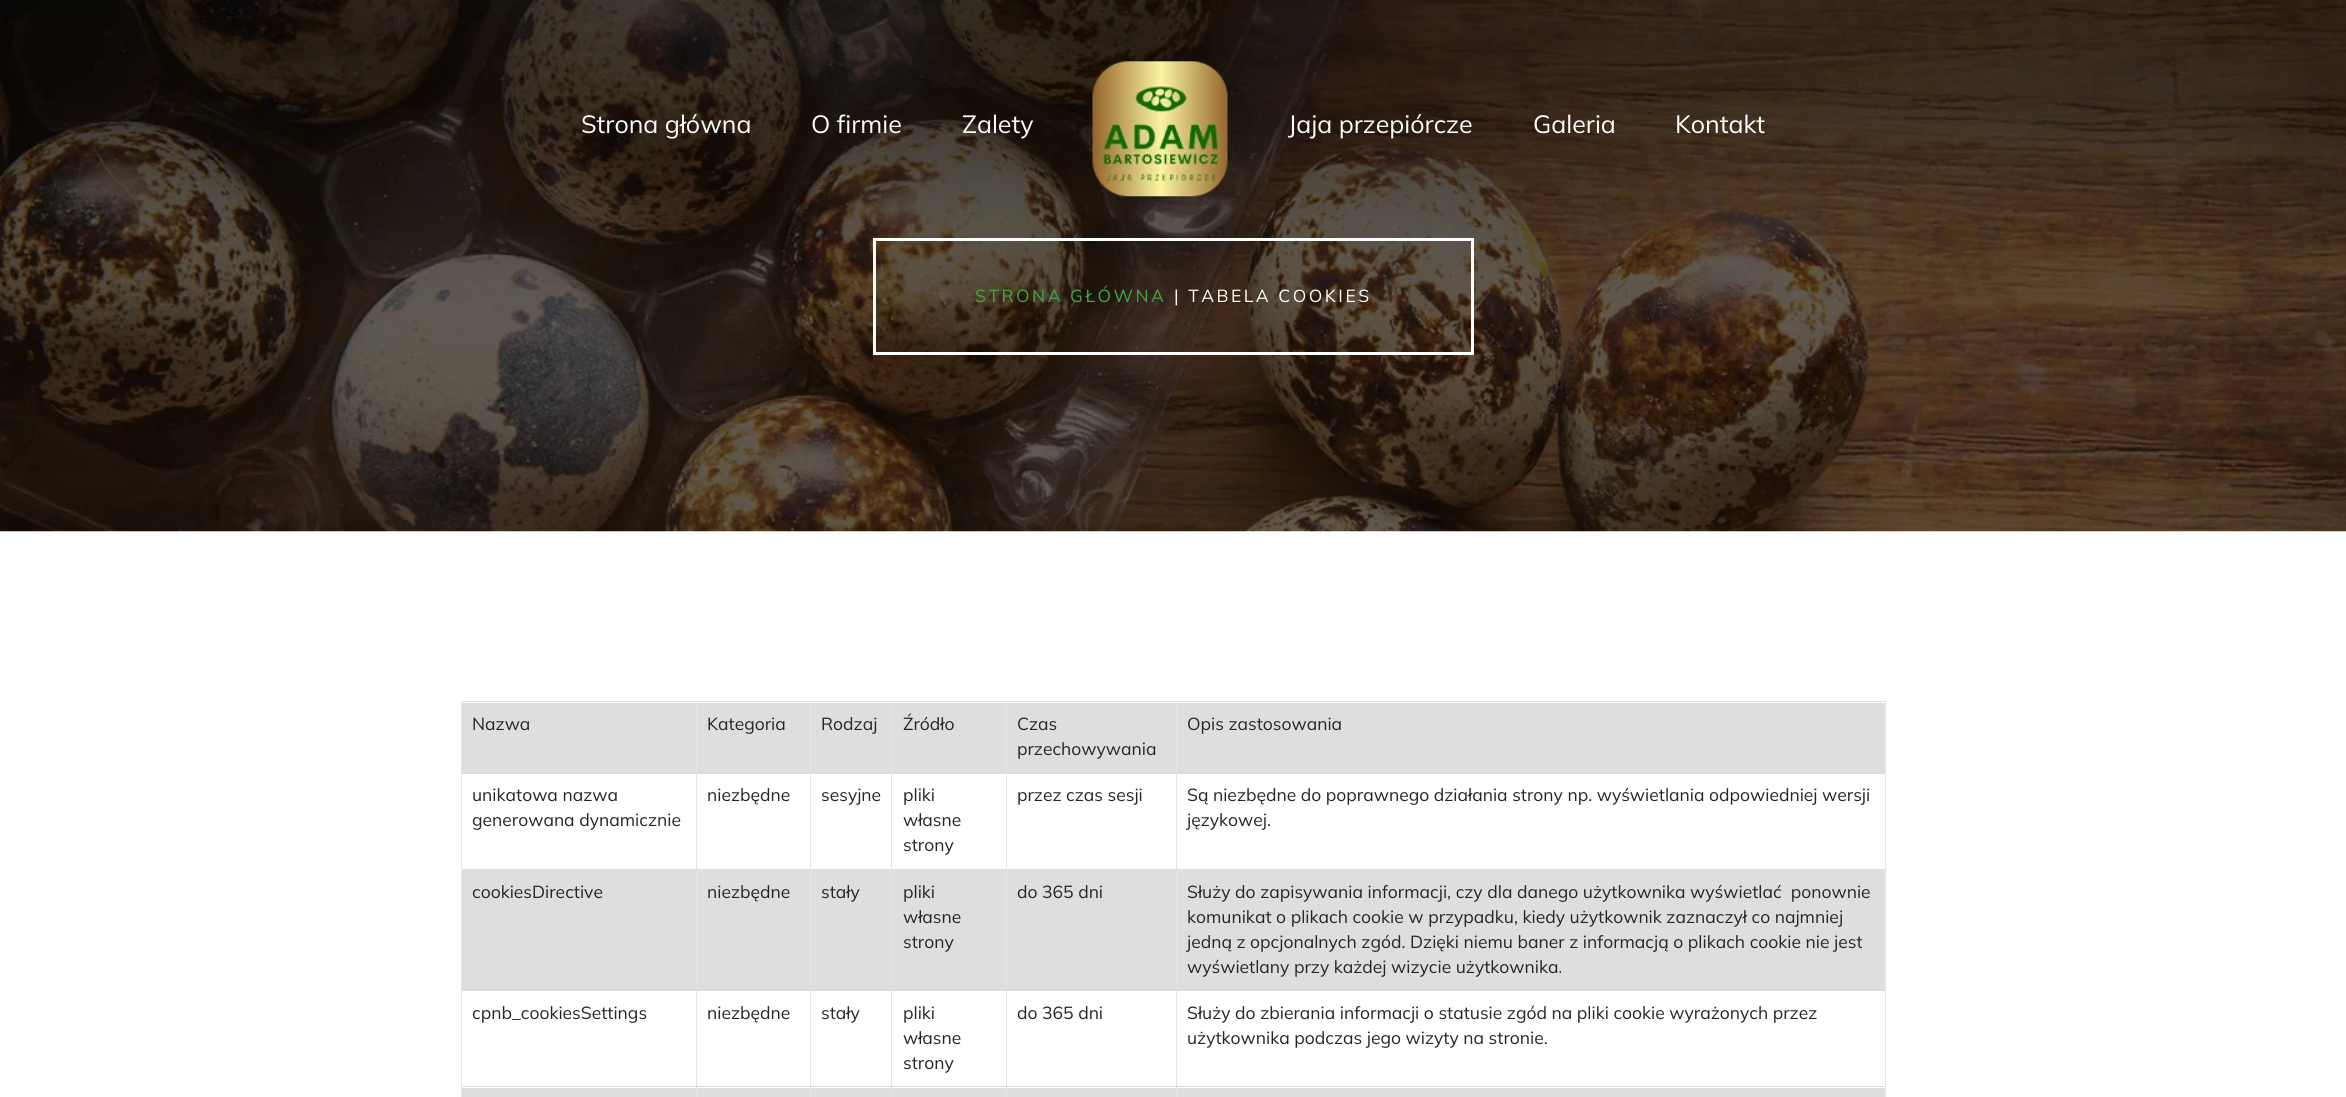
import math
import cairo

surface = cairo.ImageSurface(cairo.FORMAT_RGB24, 2346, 1097)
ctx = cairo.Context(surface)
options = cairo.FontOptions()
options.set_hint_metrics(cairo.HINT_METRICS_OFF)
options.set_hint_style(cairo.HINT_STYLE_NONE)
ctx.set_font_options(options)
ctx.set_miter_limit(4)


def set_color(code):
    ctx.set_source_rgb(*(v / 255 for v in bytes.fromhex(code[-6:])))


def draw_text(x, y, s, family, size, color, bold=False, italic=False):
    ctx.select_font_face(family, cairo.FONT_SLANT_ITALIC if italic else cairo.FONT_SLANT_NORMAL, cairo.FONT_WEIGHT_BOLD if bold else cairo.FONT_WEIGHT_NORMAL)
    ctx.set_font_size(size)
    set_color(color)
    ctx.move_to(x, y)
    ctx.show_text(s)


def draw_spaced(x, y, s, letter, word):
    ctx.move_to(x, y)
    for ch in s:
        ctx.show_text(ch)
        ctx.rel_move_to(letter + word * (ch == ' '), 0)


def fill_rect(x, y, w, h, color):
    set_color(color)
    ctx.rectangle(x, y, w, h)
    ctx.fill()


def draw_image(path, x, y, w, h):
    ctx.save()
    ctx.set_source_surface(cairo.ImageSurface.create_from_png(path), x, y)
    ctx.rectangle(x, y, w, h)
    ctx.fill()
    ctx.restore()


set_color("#ffffff")
ctx.paint()
draw_image("assets/img2.png", 0, 0, 2346, 532)
draw_text(581, 133, "Strona główna", "Mulish", 25, "#ffffff")
draw_text(811, 133, "O firmie", "Mulish", 25, "#ffffff")
draw_text(962, 133, "Zalety", "Mulish", 25, "#ffffff")
draw_image("assets/img1.png", 1092, 61, 136, 136)
draw_text(1288, 133, "Jaja przepiórcze", "Mulish", 25, "#ffffff")
draw_text(1533, 133, "Galeria", "Mulish", 25, "#ffffff")
draw_text(1675, 133, "Kontakt", "Mulish", 25, "#ffffff")
ctx.rectangle(874.5, 239.5, 598, 114)
ctx.set_line_width(3)
ctx.stroke()
ctx.set_font_size(17.5)
set_color("#40a847")
draw_spaced(975, 302, "STRONA GŁÓWNA", 2.5, 0)
set_color("#ffffff")
draw_spaced(1174, 302, "| TABELA COOKIES", 2.5, 0)
fill_rect(462, 703, 234, 70, "#dedede")
fill_rect(461, 701, 1425, 1, "#dddddd")
fill_rect(461, 773, 1425, 1, "#dddddd")
fill_rect(461, 869, 1425, 1, "#dddddd")
fill_rect(461, 990, 1425, 1, "#dddddd")
fill_rect(461, 1086, 1425, 1, "#dddddd")
fill_rect(696, 1086, 1, 11, "#e5e5e5")
fill_rect(696, 990, 1, 98, "#e5e5e5")
fill_rect(696, 869, 1, 122, "#e5e5e5")
fill_rect(696, 773, 1, 97, "#e5e5e5")
fill_rect(696, 701, 1, 73, "#e5e5e5")
fill_rect(461, 1086, 1, 11, "#e5e5e5")
fill_rect(461, 990, 1, 98, "#e5e5e5")
fill_rect(461, 869, 1, 122, "#e5e5e5")
fill_rect(461, 773, 1, 97, "#e5e5e5")
fill_rect(461, 701, 1, 73, "#e5e5e5")
draw_text(472, 730, "Nazwa", "Mulish", 17.5, "#2a2323")
fill_rect(697, 703, 113, 70, "#dedede")
fill_rect(810, 1086, 1, 11, "#e5e5e5")
fill_rect(810, 990, 1, 98, "#e5e5e5")
fill_rect(810, 869, 1, 122, "#e5e5e5")
fill_rect(810, 773, 1, 97, "#e5e5e5")
fill_rect(810, 701, 1, 73, "#e5e5e5")
draw_text(707, 730, "Kategoria", "Mulish", 17.5, "#2a2323")
fill_rect(811, 703, 195, 70, "#dedede")
fill_rect(811, 870, 195, 120, "#dedede")
fill_rect(811, 1088, 195, 9, "#dedede")
fill_rect(891, 1086, 1, 11, "#e5e5e5")
fill_rect(891, 990, 1, 98, "#e5e5e5")
fill_rect(891, 869, 1, 122, "#e5e5e5")
fill_rect(891, 773, 1, 97, "#e5e5e5")
fill_rect(891, 701, 1, 73, "#e5e5e5")
draw_text(821, 730, "Rodzaj", "Mulish", 17.5, "#2a2323")
fill_rect(1006, 1086, 1, 11, "#e5e5e5")
fill_rect(1006, 990, 1, 98, "#e5e5e5")
fill_rect(1006, 869, 1, 122, "#e5e5e5")
fill_rect(1006, 773, 1, 97, "#e5e5e5")
fill_rect(1006, 701, 1, 73, "#e5e5e5")
draw_text(903, 730, "Źródło", "Mulish", 17.5, "#2a2323")
fill_rect(1007, 703, 169, 70, "#dedede")
fill_rect(1176, 1086, 1, 11, "#e5e5e5")
fill_rect(1176, 990, 1, 98, "#e5e5e5")
fill_rect(1176, 869, 1, 122, "#e5e5e5")
fill_rect(1176, 773, 1, 97, "#e5e5e5")
fill_rect(1176, 701, 1, 73, "#e5e5e5")
draw_text(1017, 730, "Czas", "Mulish", 17.5, "#2a2323")
draw_text(1017, 755, "przechowywania", "Mulish", 17.5, "#2a2323")
fill_rect(1177, 703, 708, 70, "#dedede")
fill_rect(1885, 1086, 1, 11, "#e5e5e5")
fill_rect(1885, 990, 1, 98, "#e5e5e5")
fill_rect(1885, 869, 1, 122, "#e5e5e5")
fill_rect(1885, 773, 1, 97, "#e5e5e5")
fill_rect(1885, 701, 1, 73, "#e5e5e5")
draw_text(1187, 730, "Opis zastosowania", "Mulish", 17.5, "#2a2323")
draw_text(472, 801, "unikatowa nazwa", "Mulish", 17.5, "#2a2323")
draw_text(472, 826, "generowana dynamicznie", "Mulish", 17.5, "#2a2323")
draw_text(707, 801, "niezbędne", "Mulish", 17.5, "#2a2323")
draw_text(821, 801, "sesyjne", "Mulish", 17.5, "#2a2323")
draw_text(903, 801, "pliki", "Mulish", 17.5, "#2a2323")
draw_text(903, 826, "własne", "Mulish", 17.5, "#2a2323")
draw_text(903, 851, "strony", "Mulish", 17.5, "#2a2323")
draw_text(1017, 801, "przez czas sesji", "Mulish", 17.5, "#2a2323")
draw_text(1187, 801, "Są niezbędne do poprawnego działania strony np. wyświetlania odpowiedniej wersji", "Mulish", 17.5, "#2a2323")
draw_text(1187, 826, "językowej.", "Mulish", 17.5, "#2a2323")
fill_rect(462, 870, 234, 120, "#dedede")
draw_text(472, 898, "cookiesDirective", "Mulish", 17.5, "#2a2323")
fill_rect(697, 870, 113, 120, "#dedede")
draw_text(707, 898, "niezbędne", "Mulish", 17.5, "#2a2323")
draw_text(821, 898, "stały", "Mulish", 17.5, "#2a2323")
draw_text(903, 898, "pliki", "Mulish", 17.5, "#2a2323")
draw_text(903, 923, "własne", "Mulish", 17.5, "#2a2323")
draw_text(903, 948, "strony", "Mulish", 17.5, "#2a2323")
fill_rect(1007, 870, 169, 120, "#dedede")
draw_text(1017, 898, "do 365 dni", "Mulish", 17.5, "#2a2323")
fill_rect(1177, 870, 708, 120, "#dedede")
draw_text(1187, 898, "Służy do zapisywania informacji, czy dla danego użytkownika wyświetlać  ponownie", "Mulish", 17.5, "#2a2323")
draw_text(1187, 923, "komunikat o plikach cookie w przypadku, kiedy użytkownik zaznaczył co najmniej", "Mulish", 17.5, "#2a2323")
draw_text(1187, 948, "jedną z opcjonalnych zgód. Dzięki niemu baner z informacją o plikach cookie nie jest", "Mulish", 17.5, "#2a2323")
draw_text(1187, 973, "wyświetlany przy każdej wizycie użytkownika.", "Mulish", 17.5, "#2a2323")
draw_text(472, 1019, "cpnb_cookiesSettings", "Mulish", 17.5, "#2a2323")
draw_text(707, 1019, "niezbędne", "Mulish", 17.5, "#2a2323")
draw_text(821, 1019, "stały", "Mulish", 17.5, "#2a2323")
draw_text(903, 1019, "pliki", "Mulish", 17.5, "#2a2323")
draw_text(903, 1044, "własne", "Mulish", 17.5, "#2a2323")
draw_text(903, 1069, "strony", "Mulish", 17.5, "#2a2323")
draw_text(1017, 1019, "do 365 dni", "Mulish", 17.5, "#2a2323")
draw_text(1187, 1019, "Służy do zbierania informacji o statusie zgód na pliki cookie wyrażonych przez", "Mulish", 17.5, "#2a2323")
draw_text(1187, 1044, "użytkownika podczas jego wizyty na stronie.", "Mulish", 17.5, "#2a2323")
fill_rect(462, 1088, 234, 9, "#dedede")
fill_rect(1177, 1088, 708, 9, "#dedede")
fill_rect(697, 1088, 113, 9, "#dedede")
fill_rect(1007, 1088, 169, 9, "#dedede")
surface.write_to_png("output.png")
